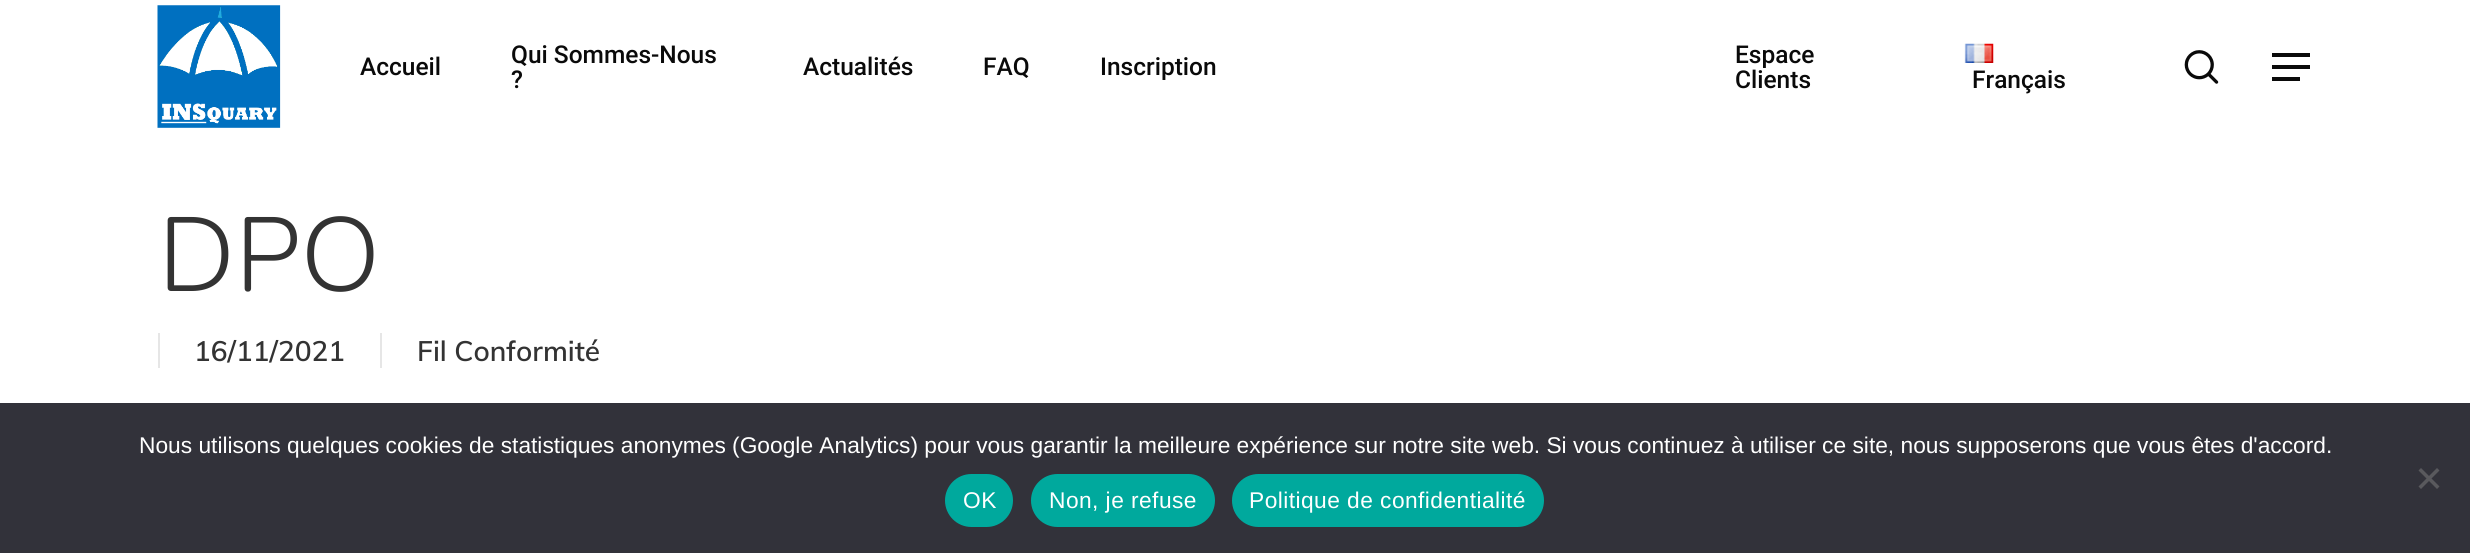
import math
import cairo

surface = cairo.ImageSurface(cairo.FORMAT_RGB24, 2470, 553)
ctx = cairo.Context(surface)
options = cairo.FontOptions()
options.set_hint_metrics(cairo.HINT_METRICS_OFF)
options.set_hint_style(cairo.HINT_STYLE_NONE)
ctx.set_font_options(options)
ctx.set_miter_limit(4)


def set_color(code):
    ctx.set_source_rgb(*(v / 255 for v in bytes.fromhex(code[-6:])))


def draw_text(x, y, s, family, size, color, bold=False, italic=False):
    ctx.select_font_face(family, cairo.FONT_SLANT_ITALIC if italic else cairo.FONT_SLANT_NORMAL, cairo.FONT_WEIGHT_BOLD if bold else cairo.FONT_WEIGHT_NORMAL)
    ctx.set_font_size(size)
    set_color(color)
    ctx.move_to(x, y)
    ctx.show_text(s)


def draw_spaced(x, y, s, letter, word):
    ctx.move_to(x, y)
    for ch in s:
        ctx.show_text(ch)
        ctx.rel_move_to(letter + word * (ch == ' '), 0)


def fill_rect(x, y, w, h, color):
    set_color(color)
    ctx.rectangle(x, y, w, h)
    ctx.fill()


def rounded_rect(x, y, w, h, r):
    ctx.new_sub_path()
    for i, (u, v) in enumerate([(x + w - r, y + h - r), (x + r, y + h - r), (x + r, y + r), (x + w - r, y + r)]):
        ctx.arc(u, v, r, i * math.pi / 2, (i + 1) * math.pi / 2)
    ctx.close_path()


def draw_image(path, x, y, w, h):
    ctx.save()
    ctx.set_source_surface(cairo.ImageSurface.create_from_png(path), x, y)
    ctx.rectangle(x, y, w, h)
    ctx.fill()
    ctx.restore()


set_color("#ffffff")
ctx.paint()
draw_image("assets/img1.png", 157, 5, 124, 123)
draw_text(360, 75, "Accueil", "Roboto Medium", 24.5, "#0a0a0a")
draw_text(511, 63, "Qui Sommes-Nous", "Roboto Medium", 24.5, "#0a0a0a")
draw_text(511, 88, "?", "Roboto Medium", 24.5, "#0a0a0a")
draw_text(803, 75, "Actualités", "Roboto Medium", 24.5, "#0a0a0a")
draw_text(983, 75, "FAQ", "Roboto Medium", 24.5, "#0a0a0a")
draw_text(1100, 75, "Inscription", "Roboto Medium", 24.5, "#0a0a0a")
draw_text(1735, 63, "Espace", "Roboto Medium", 24.5, "#0a0a0a")
draw_text(1735, 88, "Clients", "Roboto Medium", 24.5, "#0a0a0a")
draw_image("assets/img2.png", 1964, 43, 30, 20)
draw_text(1972, 88, "Français", "Roboto Medium", 24.5, "#0a0a0a")
draw_image("assets/img3.png", 2184, 50, 35, 34)
fill_rect(2272, 53, 38, 4, "#0a0a0a")
fill_rect(2272, 77, 28, 4, "#0a0a0a")
fill_rect(2272, 65, 38, 4, "#0a0a0a")
draw_text(158, 291, "DPO", "Nunito Light", 105, "#333333")
draw_text(194, 361, "16/11/2021", "Muli SemiBold", 28, "#333333")
fill_rect(158, 333, 2, 35, "#e6e6e6")
draw_text(417, 361, "Fil Conformité", "Muli SemiBold", 28, "#333333")
fill_rect(380, 333, 2, 35, "#e6e6e6")
fill_rect(0, 403, 2470, 150, "#32323a")
draw_text(139, 453, "Nous utilisons quelques cookies de statistiques anonymes (Google Analytics) pour vous garantir la meilleure expérience sur notre site web. Si vous continuez à utiliser ce site, nous supposerons que vous êtes d'accord.", "Liberation Sans", 22.75, "#ffffff")
set_color("#59595d")
ctx.new_path()
ctx.move_to(2437, 468)
ctx.line_to(2439.5, 470.5)
ctx.line_to(2421, 489)
ctx.line_to(2418.5, 486.5)
ctx.close_path()
ctx.fill()
ctx.new_path()
ctx.move_to(2418.5, 470.5)
ctx.line_to(2421, 468)
ctx.line_to(2439.5, 486.5)
ctx.line_to(2437, 489)
ctx.close_path()
ctx.fill()
set_color("#00a99d")
rounded_rect(945, 474, 68, 53, 26.5)
ctx.fill()
set_color("#ffffff")
draw_spaced(963, 508, "OK", 0.45, 0)
set_color("#00a99d")
rounded_rect(1031, 474, 184, 53, 26.5)
ctx.fill()
set_color("#ffffff")
draw_spaced(1049, 508, "Non, je refuse", 0.45, 0)
set_color("#00a99d")
rounded_rect(1232, 474, 312, 53, 26.5)
ctx.fill()
set_color("#ffffff")
draw_spaced(1249, 508, "Politique de confidentialité", 0.45, 0)
surface.write_to_png("output.png")
